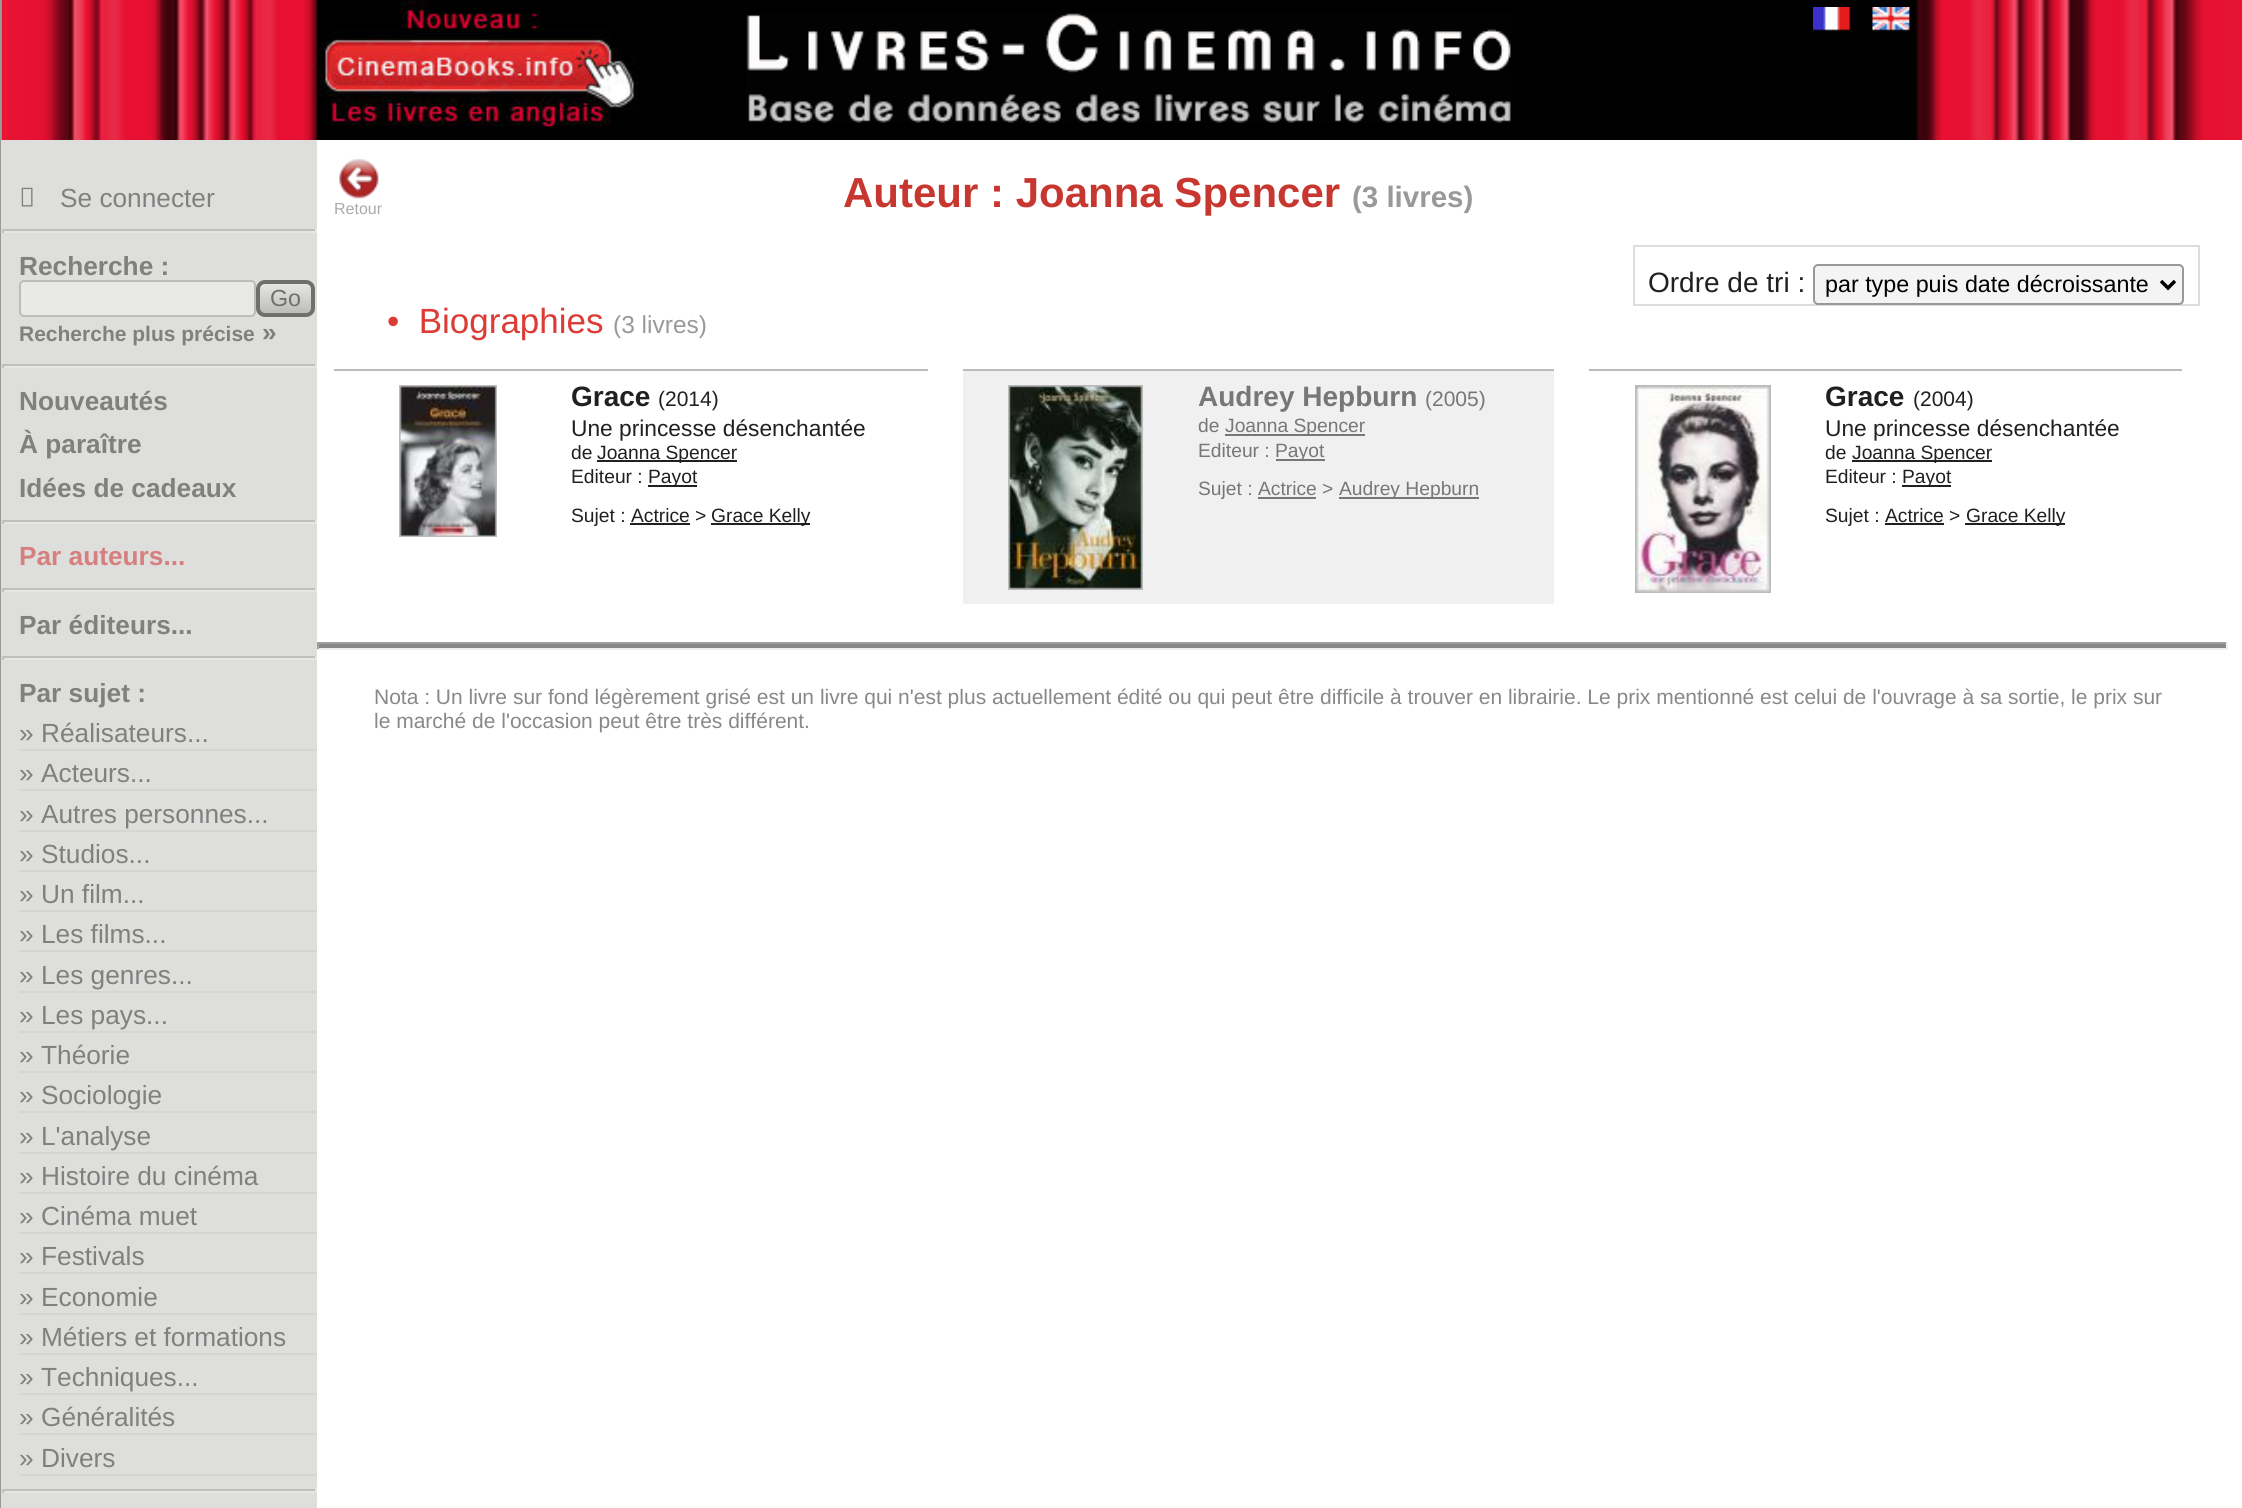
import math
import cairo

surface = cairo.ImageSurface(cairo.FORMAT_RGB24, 2242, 1508)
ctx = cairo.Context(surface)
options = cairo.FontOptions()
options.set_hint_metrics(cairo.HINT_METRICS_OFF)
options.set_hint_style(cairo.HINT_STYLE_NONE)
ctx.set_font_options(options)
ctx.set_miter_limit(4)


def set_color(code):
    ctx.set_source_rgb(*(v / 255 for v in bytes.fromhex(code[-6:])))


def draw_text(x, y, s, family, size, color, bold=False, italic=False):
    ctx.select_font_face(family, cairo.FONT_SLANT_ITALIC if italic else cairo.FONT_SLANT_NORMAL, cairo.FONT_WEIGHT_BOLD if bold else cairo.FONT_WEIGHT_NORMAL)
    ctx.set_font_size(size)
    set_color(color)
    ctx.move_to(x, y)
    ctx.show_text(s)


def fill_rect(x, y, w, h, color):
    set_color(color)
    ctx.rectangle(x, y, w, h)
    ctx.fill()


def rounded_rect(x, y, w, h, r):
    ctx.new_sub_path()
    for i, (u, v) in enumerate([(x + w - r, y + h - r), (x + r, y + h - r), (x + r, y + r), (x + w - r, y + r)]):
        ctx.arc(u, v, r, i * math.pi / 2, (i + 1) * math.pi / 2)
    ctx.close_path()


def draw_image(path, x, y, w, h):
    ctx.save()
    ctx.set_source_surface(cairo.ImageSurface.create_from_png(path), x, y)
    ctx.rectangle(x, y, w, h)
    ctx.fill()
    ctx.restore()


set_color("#ffffff")
ctx.paint()
fill_rect(0, 0, 2, 140, "#999999")
fill_rect(639, 0, 1278, 140, "#000000")
draw_image("assets/img1.png", 1916, 0, 326, 140)
draw_image("assets/img2.png", 1, 0, 316, 140)
draw_image("assets/img3.png", 746, 13, 765, 110)
draw_image("assets/img4.png", 316, 0, 323, 140)
draw_image("assets/img5.png", 1813, 7, 38, 24)
draw_image("assets/img6.png", 1872, 7, 38, 24)
fill_rect(0, 140, 1, 1368, "#999999")
fill_rect(1, 140, 316, 1368, "#dededc")
draw_image("assets/img7.png", 21, 187, 12, 20)
draw_text(60, 207, "Se connecter", "Liberation Sans", 26.25, "#80807f")
fill_rect(2, 229, 315, 2, "#bfbfbe")
fill_rect(315, 229, 2, 4, "#e6e6e5")
fill_rect(2, 231, 315, 2, "#e6e6e5")
fill_rect(2, 229, 2, 4, "#bfbfbe")
draw_text(19, 275, "Recherche :", "Liberation Sans", 26.25, "#80807f", bold=True)
set_color("#e9e9e8")
rounded_rect(20, 281, 235, 35, 4)
ctx.fill_preserve()
set_color("#bcbcbb")
ctx.stroke()
ctx.save()
rounded_rect(256, 280, 59, 37, 9)
ctx.clip()
gradient = cairo.LinearGradient(285, 284, 285, 313)
gradient.add_color_stop_rgba(0, 0.902, 0.902, 0.898, 1)
gradient.add_color_stop_rgba(1, 0.737, 0.737, 0.733, 1)
ctx.set_source(gradient)
ctx.rectangle(256, 284, 59, 29)
ctx.fill()
ctx.restore()
rounded_rect(258, 282, 55, 33, 7)
set_color("#6f6f6e")
ctx.set_line_width(4)
ctx.stroke()
draw_text(270, 306, "Go", "Liberation Sans", 23.3, "#6f6f6e")
draw_text(19, 341, "Recherche plus précise", "Liberation Sans", 21, "#80807f", bold=True)
draw_text(262, 341, "»", "Liberation Sans", 26.25, "#80807f", bold=True)
fill_rect(2, 364, 315, 2, "#bfbfbe")
fill_rect(315, 364, 2, 4, "#e6e6e5")
fill_rect(2, 366, 315, 2, "#e6e6e5")
fill_rect(2, 364, 2, 4, "#bfbfbe")
draw_text(19, 410, "Nouveautés", "Liberation Sans", 26.25, "#80807f", bold=True)
draw_text(19, 453, "À paraître", "Liberation Sans", 26.25, "#80807f", bold=True)
draw_text(19, 497, "Idées de cadeaux", "Liberation Sans", 26.25, "#80807f", bold=True)
fill_rect(2, 520, 315, 2, "#bfbfbe")
fill_rect(315, 520, 2, 4, "#e6e6e5")
fill_rect(2, 522, 315, 2, "#e6e6e5")
fill_rect(2, 520, 2, 4, "#bfbfbe")
draw_text(19, 565, "Par auteurs...", "Liberation Sans", 26.25, "#d5807f", bold=True)
fill_rect(2, 588, 315, 2, "#bfbfbe")
fill_rect(315, 588, 2, 4, "#e6e6e5")
fill_rect(2, 590, 315, 2, "#e6e6e5")
fill_rect(2, 588, 2, 4, "#bfbfbe")
draw_text(19, 634, "Par éditeurs...", "Liberation Sans", 26.25, "#80807f", bold=True)
fill_rect(2, 656, 315, 2, "#bfbfbe")
fill_rect(315, 656, 2, 4, "#e6e6e5")
fill_rect(2, 658, 315, 2, "#e6e6e5")
fill_rect(2, 656, 2, 4, "#bfbfbe")
draw_text(19, 702, "Par sujet :", "Liberation Sans", 26.25, "#80807f", bold=True)
fill_rect(19, 749, 298, 2, "#d5d5d4")
draw_text(19, 742, "»", "Liberation Sans", 26.25, "#80807f")
draw_text(41, 742, "Réalisateurs...", "Liberation Sans", 26.25, "#80807f")
fill_rect(19, 789, 298, 2, "#d5d5d4")
draw_text(19, 782, "»", "Liberation Sans", 26.25, "#80807f")
draw_text(41, 782, "Acteurs...", "Liberation Sans", 26.25, "#80807f")
fill_rect(19, 830, 298, 2, "#d5d5d4")
draw_text(19, 823, "»", "Liberation Sans", 26.25, "#80807f")
draw_text(41, 823, "Autres personnes...", "Liberation Sans", 26.25, "#80807f")
fill_rect(19, 870, 298, 2, "#d5d5d4")
draw_text(19, 863, "»", "Liberation Sans", 26.25, "#80807f")
draw_text(41, 863, "Studios...", "Liberation Sans", 26.25, "#80807f")
fill_rect(19, 910, 298, 2, "#d5d5d4")
draw_text(19, 903, "»", "Liberation Sans", 26.25, "#80807f")
draw_text(41, 903, "Un film...", "Liberation Sans", 26.25, "#80807f")
fill_rect(19, 950, 298, 2, "#d5d5d4")
draw_text(19, 943, "»", "Liberation Sans", 26.25, "#80807f")
draw_text(41, 943, "Les films...", "Liberation Sans", 26.25, "#80807f")
fill_rect(19, 991, 298, 2, "#d5d5d4")
draw_text(19, 984, "»", "Liberation Sans", 26.25, "#80807f")
draw_text(41, 984, "Les genres...", "Liberation Sans", 26.25, "#80807f")
fill_rect(19, 1031, 298, 2, "#d5d5d4")
draw_text(19, 1024, "»", "Liberation Sans", 26.25, "#80807f")
draw_text(41, 1024, "Les pays...", "Liberation Sans", 26.25, "#80807f")
fill_rect(19, 1071, 298, 2, "#d5d5d4")
draw_text(19, 1064, "»", "Liberation Sans", 26.25, "#80807f")
draw_text(41, 1064, "Théorie", "Liberation Sans", 26.25, "#80807f")
fill_rect(19, 1111, 298, 2, "#d5d5d4")
draw_text(19, 1104, "»", "Liberation Sans", 26.25, "#80807f")
draw_text(41, 1104, "Sociologie", "Liberation Sans", 26.25, "#80807f")
fill_rect(19, 1152, 298, 2, "#d5d5d4")
draw_text(19, 1145, "»", "Liberation Sans", 26.25, "#80807f")
draw_text(41, 1145, "L'analyse", "Liberation Sans", 26.25, "#80807f")
fill_rect(19, 1192, 298, 2, "#d5d5d4")
draw_text(19, 1185, "»", "Liberation Sans", 26.25, "#80807f")
draw_text(41, 1185, "Histoire du cinéma", "Liberation Sans", 26.25, "#80807f")
fill_rect(19, 1232, 298, 2, "#d5d5d4")
draw_text(19, 1225, "»", "Liberation Sans", 26.25, "#80807f")
draw_text(41, 1225, "Cinéma muet", "Liberation Sans", 26.25, "#80807f")
fill_rect(19, 1272, 298, 2, "#d5d5d4")
draw_text(19, 1265, "»", "Liberation Sans", 26.25, "#80807f")
draw_text(41, 1265, "Festivals", "Liberation Sans", 26.25, "#80807f")
fill_rect(19, 1313, 298, 2, "#d5d5d4")
draw_text(19, 1306, "»", "Liberation Sans", 26.25, "#80807f")
draw_text(41, 1306, "Economie", "Liberation Sans", 26.25, "#80807f")
fill_rect(19, 1353, 298, 2, "#d5d5d4")
draw_text(19, 1346, "»", "Liberation Sans", 26.25, "#80807f")
draw_text(41, 1346, "Métiers et formations", "Liberation Sans", 26.25, "#80807f")
fill_rect(19, 1393, 298, 2, "#d5d5d4")
draw_text(19, 1386, "»", "Liberation Sans", 26.25, "#80807f")
draw_text(41, 1386, "Techniques...", "Liberation Sans", 26.25, "#80807f")
fill_rect(19, 1433, 298, 2, "#d5d5d4")
draw_text(19, 1426, "»", "Liberation Sans", 26.25, "#80807f")
draw_text(41, 1426, "Généralités", "Liberation Sans", 26.25, "#80807f")
fill_rect(19, 1474, 298, 2, "#d5d5d4")
draw_text(19, 1467, "»", "Liberation Sans", 26.25, "#80807f")
draw_text(41, 1467, "Divers", "Liberation Sans", 26.25, "#80807f")
fill_rect(2, 1489, 315, 2, "#bfbfbe")
fill_rect(315, 1489, 2, 4, "#e6e6e5")
fill_rect(2, 1491, 315, 2, "#e6e6e5")
fill_rect(2, 1489, 2, 4, "#bfbfbe")
draw_image("assets/img8.png", 339, 158, 40, 41)
draw_text(334, 214, "Retour", "Liberation Sans", 16, "#aaaaaa")
draw_text(843, 207, "Auteur : Joanna Spencer", "Liberation Sans", 42, "#c73730", bold=True)
draw_text(1352, 207, "(3 livres)", "Liberation Sans", 29.5, "#999999", bold=True)
ctx.rectangle(1634, 246, 565, 59)
set_color("#dddddd")
ctx.set_line_width(2)
ctx.stroke()
draw_text(1648, 292, "Ordre de tri :", "Liberation Sans", 28, "#202020")
set_color("#f4f4f4")
rounded_rect(1814, 265, 369, 39, 4)
ctx.fill_preserve()
set_color("#999999")
ctx.stroke()
ctx.new_path()
ctx.move_to(2161, 281)
ctx.line_to(2168, 288)
ctx.line_to(2175, 281)
set_color("#000000")
ctx.set_line_width(3.5)
ctx.stroke()
draw_text(1825, 292, "par type puis date décroissante", "Liberation Sans", 23.3, "#000000")
draw_text(387, 333, "•  Biographies", "Liberation Sans", 35, "#dc3c35")
draw_text(613, 333, "(3 livres)", "Liberation Sans", 24.5, "#999999")
fill_rect(334, 369, 594, 2, "#bbbbbb")
ctx.rectangle(400, 386, 96, 150)
ctx.set_line_width(2)
ctx.stroke()
draw_image("assets/img9.png", 400, 386, 96, 150)
draw_text(571, 406, "Grace", "Liberation Sans", 28, "#202020", bold=True)
draw_text(658, 406, "(2014)", "Liberation Sans", 21, "#202020")
draw_text(571, 436, "Une princesse désenchantée", "Liberation Sans", 22.75, "#202020")
draw_text(571, 459, "de", "Liberation Sans", 19.25, "#202020")
fill_rect(597, 460, 140, 2, "#202020")
draw_text(597, 459, "Joanna Spencer", "Liberation Sans", 19.25, "#202020")
draw_text(571, 483, "Editeur :", "Liberation Sans", 19.25, "#202020")
fill_rect(648, 485, 49, 2, "#202020")
draw_text(648, 483, "Payot", "Liberation Sans", 19.25, "#202020")
draw_text(571, 522, "Sujet : Actrice >", "Liberation Sans", 19.25, "#202020")
fill_rect(711, 523, 99, 2, "#202020")
draw_text(711, 522, "Grace Kelly", "Liberation Sans", 19.25, "#202020")
fill_rect(630, 523, 60, 2, "#202020")
fill_rect(963, 371, 591, 233, "#f0f0f0")
fill_rect(963, 369, 591, 2, "#bbbbbb")
set_color("#cccccc")
ctx.rectangle(1009, 386, 133, 203)
ctx.fill_preserve()
set_color("#bbbbbb")
ctx.stroke()
draw_image("assets/img10.png", 1009, 386, 133, 203)
draw_text(1198, 406, "Audrey Hepburn", "Liberation Sans", 28, "#777777", bold=True)
draw_text(1425, 406, "(2005)", "Liberation Sans", 21, "#777777")
draw_text(1198, 432, "de", "Liberation Sans", 19.25, "#777777")
fill_rect(1225, 434, 140, 2, "#777777")
draw_text(1225, 432, "Joanna Spencer", "Liberation Sans", 19.25, "#777777")
draw_text(1198, 457, "Editeur :", "Liberation Sans", 19.25, "#777777")
fill_rect(1276, 459, 49, 2, "#777777")
draw_text(1275, 457, "Payot", "Liberation Sans", 19.25, "#777777")
draw_text(1198, 495, "Sujet : Actrice >", "Liberation Sans", 19.25, "#777777")
fill_rect(1339, 497, 140, 2, "#777777")
draw_text(1339, 495, "Audrey Hepburn", "Liberation Sans", 19.25, "#777777")
fill_rect(1258, 497, 58, 2, "#777777")
fill_rect(1589, 369, 593, 2, "#bbbbbb")
ctx.rectangle(1636, 386, 134, 206)
ctx.stroke()
draw_image("assets/img11.png", 1635, 386, 135, 206)
draw_text(1825, 406, "Grace", "Liberation Sans", 28, "#202020", bold=True)
draw_text(1913, 406, "(2004)", "Liberation Sans", 21, "#202020")
draw_text(1825, 436, "Une princesse désenchantée", "Liberation Sans", 22.75, "#202020")
draw_text(1825, 459, "de", "Liberation Sans", 19.25, "#202020")
fill_rect(1852, 460, 140, 2, "#202020")
draw_text(1852, 459, "Joanna Spencer", "Liberation Sans", 19.25, "#202020")
draw_text(1825, 483, "Editeur :", "Liberation Sans", 19.25, "#202020")
fill_rect(1902, 485, 49, 2, "#202020")
draw_text(1902, 483, "Payot", "Liberation Sans", 19.25, "#202020")
draw_text(1825, 522, "Sujet : Actrice >", "Liberation Sans", 19.25, "#202020")
fill_rect(1965, 523, 100, 2, "#202020")
draw_text(1966, 522, "Grace Kelly", "Liberation Sans", 19.25, "#202020")
fill_rect(1885, 523, 59, 2, "#202020")
fill_rect(317, 644, 1911, 4, "#888888")
fill_rect(317, 642, 1911, 2, "#9f9f9f")
fill_rect(2226, 642, 2, 7, "#eeeeee")
fill_rect(317, 648, 1911, 2, "#eeeeee")
fill_rect(317, 642, 2, 7, "#9f9f9f")
draw_text(374, 704, "Nota : Un livre sur fond légèrement grisé est un livre qui n'est plus actuellement édité ou qui peut être difficile à trouver en librairie. Le prix mentionné est celui de l'ouvrage à sa sortie, le prix sur", "Liberation Sans", 21, "#888888")
draw_text(374, 728, "le marché de l'occasion peut être très différent.", "Liberation Sans", 21, "#888888")
surface.write_to_png("output.png")
